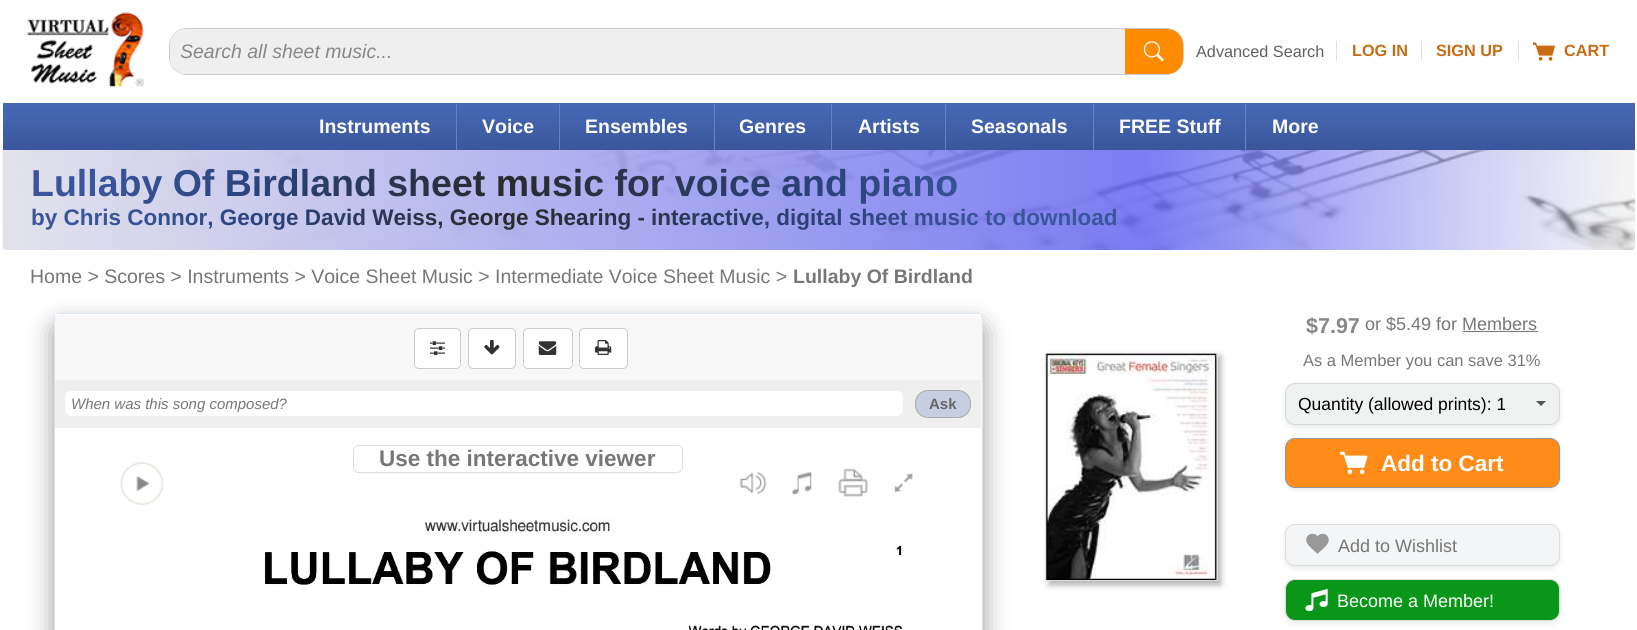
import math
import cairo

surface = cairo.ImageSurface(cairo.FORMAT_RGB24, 1637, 630)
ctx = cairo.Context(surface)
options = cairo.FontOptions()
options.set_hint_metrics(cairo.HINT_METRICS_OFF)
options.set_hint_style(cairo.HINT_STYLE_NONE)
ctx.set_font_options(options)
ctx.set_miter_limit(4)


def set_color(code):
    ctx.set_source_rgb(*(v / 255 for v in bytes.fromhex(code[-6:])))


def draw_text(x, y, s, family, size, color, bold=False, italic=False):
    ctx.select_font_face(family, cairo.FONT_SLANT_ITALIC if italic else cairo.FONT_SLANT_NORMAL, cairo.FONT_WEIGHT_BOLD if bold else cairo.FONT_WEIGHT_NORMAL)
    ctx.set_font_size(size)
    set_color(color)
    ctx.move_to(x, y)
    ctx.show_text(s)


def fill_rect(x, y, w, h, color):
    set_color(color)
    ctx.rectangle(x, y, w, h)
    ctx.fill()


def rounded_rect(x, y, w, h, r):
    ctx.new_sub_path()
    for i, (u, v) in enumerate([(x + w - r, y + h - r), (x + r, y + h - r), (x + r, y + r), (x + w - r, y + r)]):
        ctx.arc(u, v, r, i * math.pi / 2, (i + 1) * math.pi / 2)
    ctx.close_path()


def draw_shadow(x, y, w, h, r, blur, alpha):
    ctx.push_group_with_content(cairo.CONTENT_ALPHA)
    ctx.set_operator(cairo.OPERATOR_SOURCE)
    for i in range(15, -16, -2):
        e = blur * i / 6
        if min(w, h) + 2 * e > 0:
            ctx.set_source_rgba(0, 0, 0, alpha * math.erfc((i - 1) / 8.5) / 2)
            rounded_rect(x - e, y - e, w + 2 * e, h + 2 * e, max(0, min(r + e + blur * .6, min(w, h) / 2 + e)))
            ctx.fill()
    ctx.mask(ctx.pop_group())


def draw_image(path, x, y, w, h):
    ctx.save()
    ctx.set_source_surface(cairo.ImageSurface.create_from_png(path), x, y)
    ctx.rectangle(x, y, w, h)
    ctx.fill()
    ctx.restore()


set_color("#ffffff")
ctx.paint()
draw_image("assets/img1.png", 27, 12, 117, 75)
rounded_rect(169.5, 28.5, 1014, 46, 17.5)
set_color("#cccccc")
ctx.set_line_width(1)
ctx.stroke()
set_color("#efefef")
ctx.new_path()
ctx.move_to(186, 29)
ctx.line_to(1125, 29)
ctx.line_to(1125, 74)
ctx.line_to(186, 74)
ctx.curve_to(177, 74, 170, 67, 170, 58)
ctx.line_to(170, 45)
ctx.curve_to(170, 36, 177, 29, 186, 29)
ctx.close_path()
ctx.fill()
draw_text(180, 58, "Search all sheet music...", "Liberation Sans", 19.5, "#888888", italic=True)
set_color("#ff8c00")
ctx.new_path()
ctx.move_to(1125, 29)
ctx.line_to(1167, 29)
ctx.curve_to(1176, 29, 1183, 36, 1183, 45)
ctx.line_to(1183, 58)
ctx.curve_to(1183, 67, 1176, 74, 1167, 74)
ctx.line_to(1125, 74)
ctx.close_path()
ctx.fill()
draw_image("assets/img2.png", 1144, 41, 20, 20)
draw_text(1196, 57, "Advanced Search", "Liberation Sans", 16.25, "#606165")
fill_rect(1336, 41, 1, 20, "#e0e0e0")
draw_text(1352, 56, "LOG IN", "Liberation Sans", 16.25, "#c76c14", bold=True)
fill_rect(1421, 41, 1, 20, "#e0e0e0")
draw_text(1436, 56, "SIGN UP", "Liberation Sans", 16.25, "#c76c14", bold=True)
fill_rect(1518, 41, 1, 20, "#e0e0e0")
draw_image("assets/img3.png", 1533, 42, 22, 19)
draw_text(1564, 56, "CART", "Liberation Sans", 16.25, "#c76c14", bold=True)
gradient = cairo.LinearGradient(819, 102, 819, 150)
gradient.add_color_stop_rgba(0, 0.278, 0.416, 0.714, 1)
gradient.add_color_stop_rgba(1, 0.227, 0.337, 0.612, 1)
ctx.set_source(gradient)
ctx.rectangle(3, 103, 1632, 47)
ctx.fill()
fill_rect(456, 103, 1, 47, "#6483c6")
draw_text(319, 133, "Instruments", "Liberation Sans", 19.5, "#ffffff", bold=True)
fill_rect(559, 103, 1, 47, "#6483c6")
draw_text(482, 133, "Voice", "Liberation Sans", 19.5, "#ffffff", bold=True)
fill_rect(714, 103, 1, 47, "#6483c6")
draw_text(585, 133, "Ensembles", "Liberation Sans", 19.5, "#ffffff", bold=True)
fill_rect(831, 103, 1, 47, "#6483c6")
draw_text(739, 133, "Genres", "Liberation Sans", 19.5, "#ffffff", bold=True)
fill_rect(945, 103, 1, 47, "#6483c6")
draw_text(858, 133, "Artists", "Liberation Sans", 19.5, "#ffffff", bold=True)
fill_rect(1093, 103, 1, 47, "#6483c6")
draw_text(971, 133, "Seasonals", "Liberation Sans", 19.5, "#ffffff", bold=True)
fill_rect(1245, 103, 1, 47, "#6483c6")
draw_text(1119, 133, "FREE Stuff", "Liberation Sans", 19.5, "#ffffff", bold=True)
draw_text(1272, 133, "More", "Liberation Sans", 19.5, "#ffffff", bold=True)
draw_image("assets/img4.png", 2, 150, 1633, 100)
ctx.set_font_size(37.5)
gradient = cairo.LinearGradient(220, -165, 1430, 533)
gradient.add_color_stop_rgba(0.05, 0.224, 0.337, 0.612, 1)
gradient.add_color_stop_rgba(0.15, 0.169, 0.263, 0.482, 1)
gradient.add_color_stop_rgba(0.3, 0.165, 0.165, 0.173, 1)
gradient.add_color_stop_rgba(0.5, 0.169, 0.263, 0.482, 1)
gradient.add_color_stop_rgba(0.6, 0.224, 0.337, 0.612, 1)
ctx.set_source(gradient)
ctx.move_to(31, 196)
ctx.show_text("Lullaby Of Birdland sheet music for voice and piano")
ctx.set_font_size(22.5)
gradient = cairo.LinearGradient(224, -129, 1426, 565)
gradient.add_color_stop_rgba(0.05, 0.224, 0.337, 0.612, 1)
gradient.add_color_stop_rgba(0.15, 0.169, 0.263, 0.482, 1)
gradient.add_color_stop_rgba(0.3, 0.165, 0.165, 0.173, 1)
gradient.add_color_stop_rgba(0.5, 0.169, 0.263, 0.482, 1)
gradient.add_color_stop_rgba(0.6, 0.224, 0.337, 0.612, 1)
ctx.set_source(gradient)
ctx.move_to(31, 225)
ctx.show_text("by Chris Connor, George David Weiss, George Shearing - interactive, digital sheet music to download")
draw_text(30, 283, "Home > Scores > Instruments > Voice Sheet Music > Intermediate Voice Sheet Music >", "Liberation Sans", 19.5, "#777777")
draw_text(793, 283, "Lullaby Of Birdland", "Liberation Sans", 19.5, "#777777", bold=True)
set_color("#999999")
draw_shadow(54, 325, 929, 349, 6, 12.5, 1)
set_color("#f8f8f8")
rounded_rect(54.5, 313.5, 928, 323, 5.5)
ctx.fill_preserve()
set_color("#dae2f6")
ctx.stroke()
fill_rect(55, 314, 926, 316, "#ffffff")
fill_rect(55, 315, 926, 65, "#f8f8f8")
set_color("#ffffff")
rounded_rect(414.5, 328.5, 46, 40, 4.5)
ctx.fill_preserve()
set_color("#cccccc")
ctx.stroke()
draw_image("assets/img5.png", 430, 341, 15, 14)
set_color("#ffffff")
rounded_rect(468.5, 328.5, 47, 40, 4.5)
ctx.fill_preserve()
set_color("#cccccc")
ctx.stroke()
draw_image("assets/img6.png", 484, 340, 16, 15)
set_color("#ffffff")
rounded_rect(523.5, 328.5, 49, 40, 4.5)
ctx.fill_preserve()
set_color("#cccccc")
ctx.stroke()
draw_image("assets/img7.png", 538, 341, 19, 14)
set_color("#ffffff")
rounded_rect(579.5, 328.5, 48, 40, 4.5)
ctx.fill_preserve()
set_color("#cccccc")
ctx.stroke()
draw_image("assets/img8.png", 595, 340, 17, 15)
fill_rect(55, 380, 926, 48, "#efefef")
set_color("#ffffff")
rounded_rect(65, 391, 838, 25, 6)
ctx.fill()
draw_text(71, 409, "When was this song composed?", "Liberation Sans", 15, "#777777", italic=True)
set_color("#c6cee1")
rounded_rect(915.5, 390.5, 55, 27, 12.5)
ctx.fill_preserve()
set_color("#aaaaaa")
ctx.stroke()
draw_text(929, 409, "Ask", "Liberation Sans", 15, "#666666", bold=True)
draw_image("assets/img9.png", 120, 461, 793, 45)
rounded_rect(353.5, 445.5, 329, 27, 5.5)
set_color("#dddddd")
ctx.stroke()
draw_text(379, 466, "Use the interactive viewer", "Liberation Sans", 22.5, "#777777", bold=True)
draw_image("assets/img10.png", 264, 517, 639, 113)
set_color("#000000")
draw_shadow(1049, 356, 172, 229, 0, 3, 0.3)
ctx.rectangle(1045.5, 353.5, 172, 227)
set_color("#dddddd")
ctx.stroke()
draw_image("assets/img11.png", 1046, 353, 171, 227)
draw_text(1306, 333, "$7.97", "Liberation Sans", 21.5, "#888888", bold=True)
draw_text(1365, 330, "or $5.49 for Members", "Liberation Sans", 18, "#777777")
fill_rect(1463, 331, 75, 1, "#777777")
draw_text(1303, 366, "As a Member you can save 31%", "Liberation Sans", 16.5, "#777777")
set_color("#d5d9d9")
draw_shadow(1285, 385, 275, 43, 10, 3, 0.5)
set_color("#f0f2f2")
rounded_rect(1285.5, 383.5, 274, 41, 9.5)
ctx.fill_preserve()
set_color("#d5d9d9")
ctx.stroke()
draw_text(1298, 410, "Quantity (allowed prints): 1", "Liberation Sans", 17.5, "#000000")
set_color("#555555")
ctx.new_path()
ctx.move_to(1536, 401)
ctx.line_to(1546, 401)
ctx.line_to(1541, 406)
ctx.close_path()
ctx.fill()
set_color("#d5d9d9")
draw_shadow(1285, 440, 275, 50, 10, 3, 0.5)
set_color("#ff8c18")
rounded_rect(1285.5, 438.5, 274, 49, 9.5)
ctx.fill_preserve()
set_color("#979797")
ctx.stroke()
draw_image("assets/img12.png", 1340, 451, 28, 23)
draw_text(1381, 471, "Add to Cart", "Liberation Sans", 22.5, "#ffffff", bold=True)
set_color("#d5d9d9")
draw_shadow(1285, 526, 275, 43, 10, 3, 0.5)
set_color("#f3f5f6")
rounded_rect(1285.5, 524.5, 274, 41, 9.5)
ctx.fill_preserve()
set_color("#dddddd")
ctx.stroke()
draw_image("assets/img13.png", 1306, 533, 23, 21)
draw_text(1338, 552, "Add to Wishlist", "Liberation Sans", 18, "#777777")
set_color("#d5d9d9")
draw_shadow(1285, 581, 275, 43, 10, 3, 0.5)
set_color("#0a9719")
rounded_rect(1285.5, 579.5, 274, 41, 9.5)
ctx.fill_preserve()
set_color("#dddddd")
ctx.stroke()
draw_image("assets/img14.png", 1305, 589, 23, 23)
draw_text(1337, 607, "Become a Member!", "Liberation Sans", 18, "#ffffff")
surface.write_to_png("output.png")
